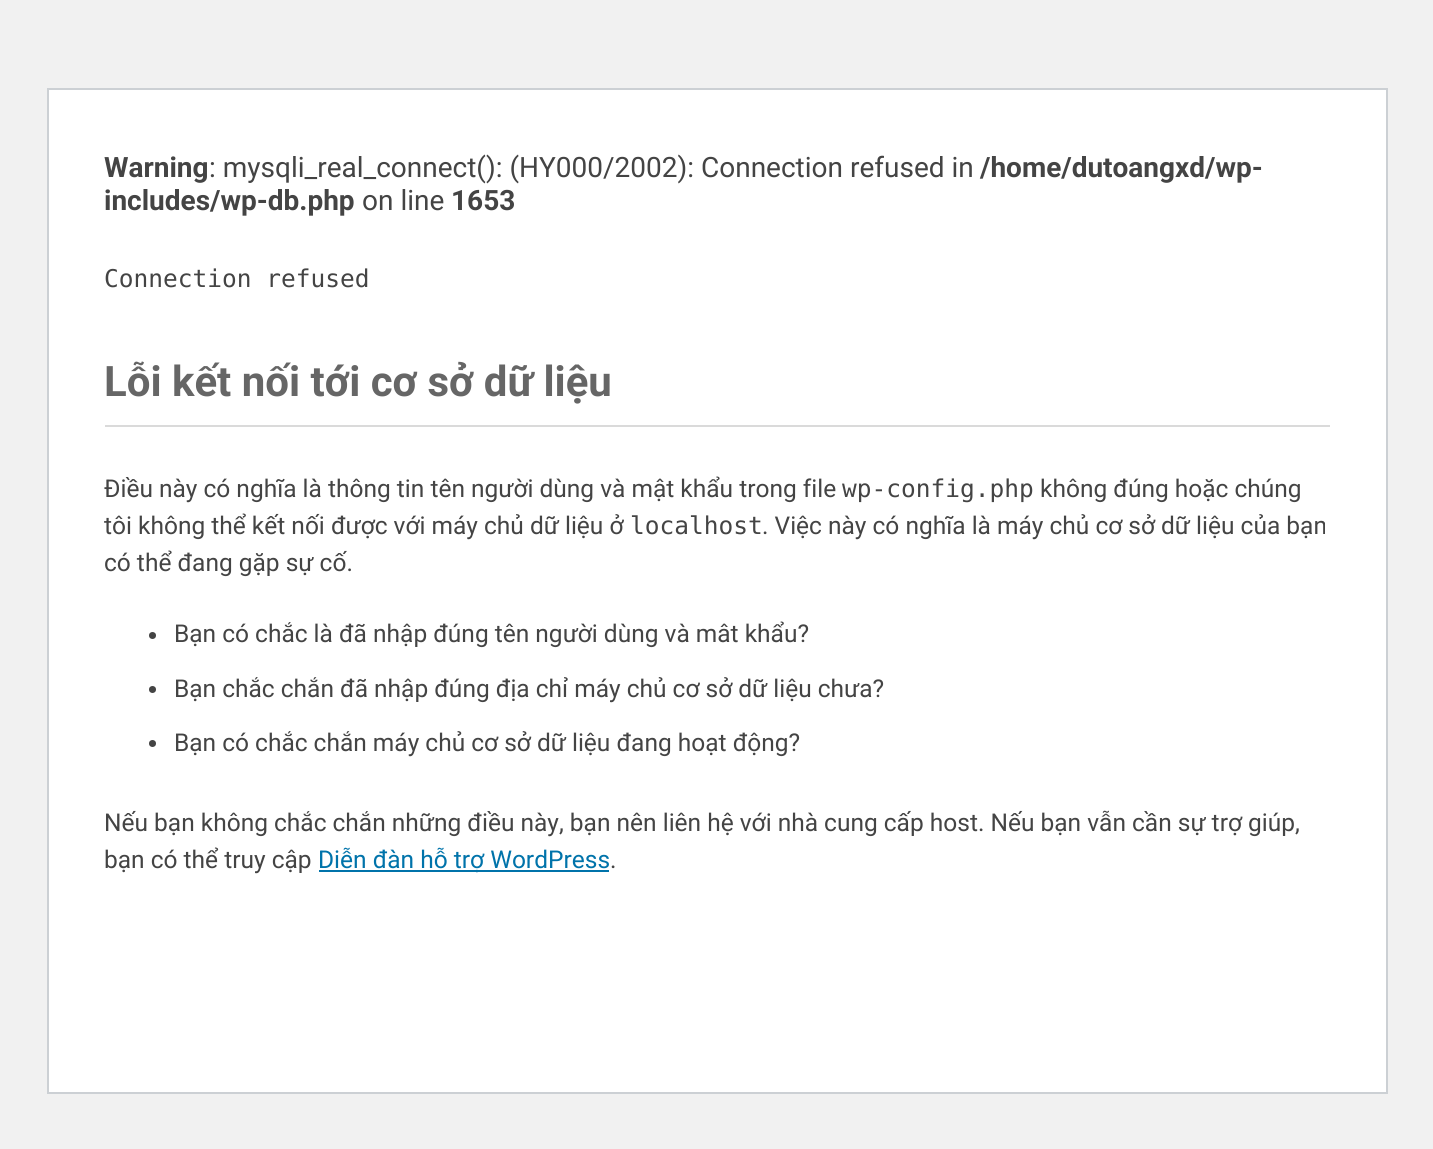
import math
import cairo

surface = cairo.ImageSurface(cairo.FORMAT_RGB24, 1433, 1149)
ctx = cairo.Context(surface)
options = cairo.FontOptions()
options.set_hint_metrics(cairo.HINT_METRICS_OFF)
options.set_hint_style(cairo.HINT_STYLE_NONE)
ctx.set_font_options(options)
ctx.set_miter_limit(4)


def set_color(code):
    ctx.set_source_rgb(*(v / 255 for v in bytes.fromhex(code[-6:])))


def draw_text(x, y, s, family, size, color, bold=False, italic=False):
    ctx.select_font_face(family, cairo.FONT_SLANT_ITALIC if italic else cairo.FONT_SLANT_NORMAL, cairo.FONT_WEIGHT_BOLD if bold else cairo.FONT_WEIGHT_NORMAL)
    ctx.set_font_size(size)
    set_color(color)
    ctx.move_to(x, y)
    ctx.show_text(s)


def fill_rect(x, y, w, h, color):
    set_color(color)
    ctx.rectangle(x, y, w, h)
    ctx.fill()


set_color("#f1f1f1")
ctx.paint()
set_color("#ffffff")
ctx.rectangle(48, 89, 1339, 1004)
ctx.fill_preserve()
set_color("#ccd0d4")
ctx.stroke()
draw_text(104, 177, "Warning", "Roboto", 28, "#444444", bold=True)
draw_text(209, 177, ": mysqli_real_connect(): (HY000/2002): Connection refused in", "Roboto", 28, "#444444")
draw_text(980, 177, "/home/dutoangxd/wp-", "Roboto", 28, "#444444", bold=True)
draw_text(104, 210, "includes/wp-db.php", "Roboto", 28, "#444444", bold=True)
draw_text(362, 210, "on line", "Roboto", 28, "#444444")
draw_text(451, 210, "1653", "Roboto", 28, "#444444", bold=True)
draw_text(104, 287, "Connection refused", "DejaVu Sans Mono", 24.5, "#444444")
fill_rect(105, 425, 1225, 2, "#dadada")
draw_text(104, 396, "Lỗi kết nối tới cơ sở dữ liệu", "Roboto", 42, "#666666", bold=True)
draw_text(104, 497, "Điều này có nghĩa là thông tin tên người dùng và mật khẩu trong file", "Roboto", 24.5, "#444444")
draw_text(842, 497, "wp-config.php", "DejaVu Sans Mono", 24.5, "#444444")
draw_text(1040, 497, "không đúng hoặc chúng", "Roboto", 24.5, "#444444")
draw_text(104, 534, "tôi không thể kết nối được với máy chủ dữ liệu ở", "Roboto", 24.5, "#444444")
draw_text(630, 534, "localhost", "DejaVu Sans Mono", 24.5, "#444444")
draw_text(762, 534, ". Việc này có nghĩa là máy chủ cơ sở dữ liệu của bạn", "Roboto", 24.5, "#444444")
draw_text(104, 571, "có thể đang gặp sự cố.", "Roboto", 24.5, "#444444")
ctx.new_path()
ctx.arc(152.5, 635.5, 3.5, 0, 2 * math.pi)
ctx.fill()
draw_text(174, 642, "Bạn có chắc là đã nhập đúng tên người dùng và mât khẩu?", "Roboto", 24.5, "#444444")
ctx.new_path()
ctx.arc(152.5, 689.5, 3.5, 0, 2 * math.pi)
ctx.fill()
draw_text(174, 697, "Bạn chắc chắn đã nhập đúng địa chỉ máy chủ cơ sở dữ liệu chưa?", "Roboto", 24.5, "#444444")
ctx.new_path()
ctx.arc(152.5, 743.5, 3.5, 0, 2 * math.pi)
ctx.fill()
draw_text(174, 751, "Bạn có chắc chắn máy chủ cơ sở dữ liệu đang hoạt động?", "Roboto", 24.5, "#444444")
draw_text(104, 831, "Nếu bạn không chắc chắn những điều này, bạn nên liên hệ với nhà cung cấp host. Nếu bạn vẫn cần sự trợ giúp,", "Roboto", 24.5, "#444444")
draw_text(104, 868, "bạn có thể truy cập", "Roboto", 24.5, "#444444")
fill_rect(319, 870, 290, 2, "#0073aa")
draw_text(318, 868, "Diễn đàn hỗ trợ WordPress", "Roboto", 24.5, "#0073aa")
draw_text(610, 868, ".", "Roboto", 24.5, "#444444")
surface.write_to_png("output.png")
